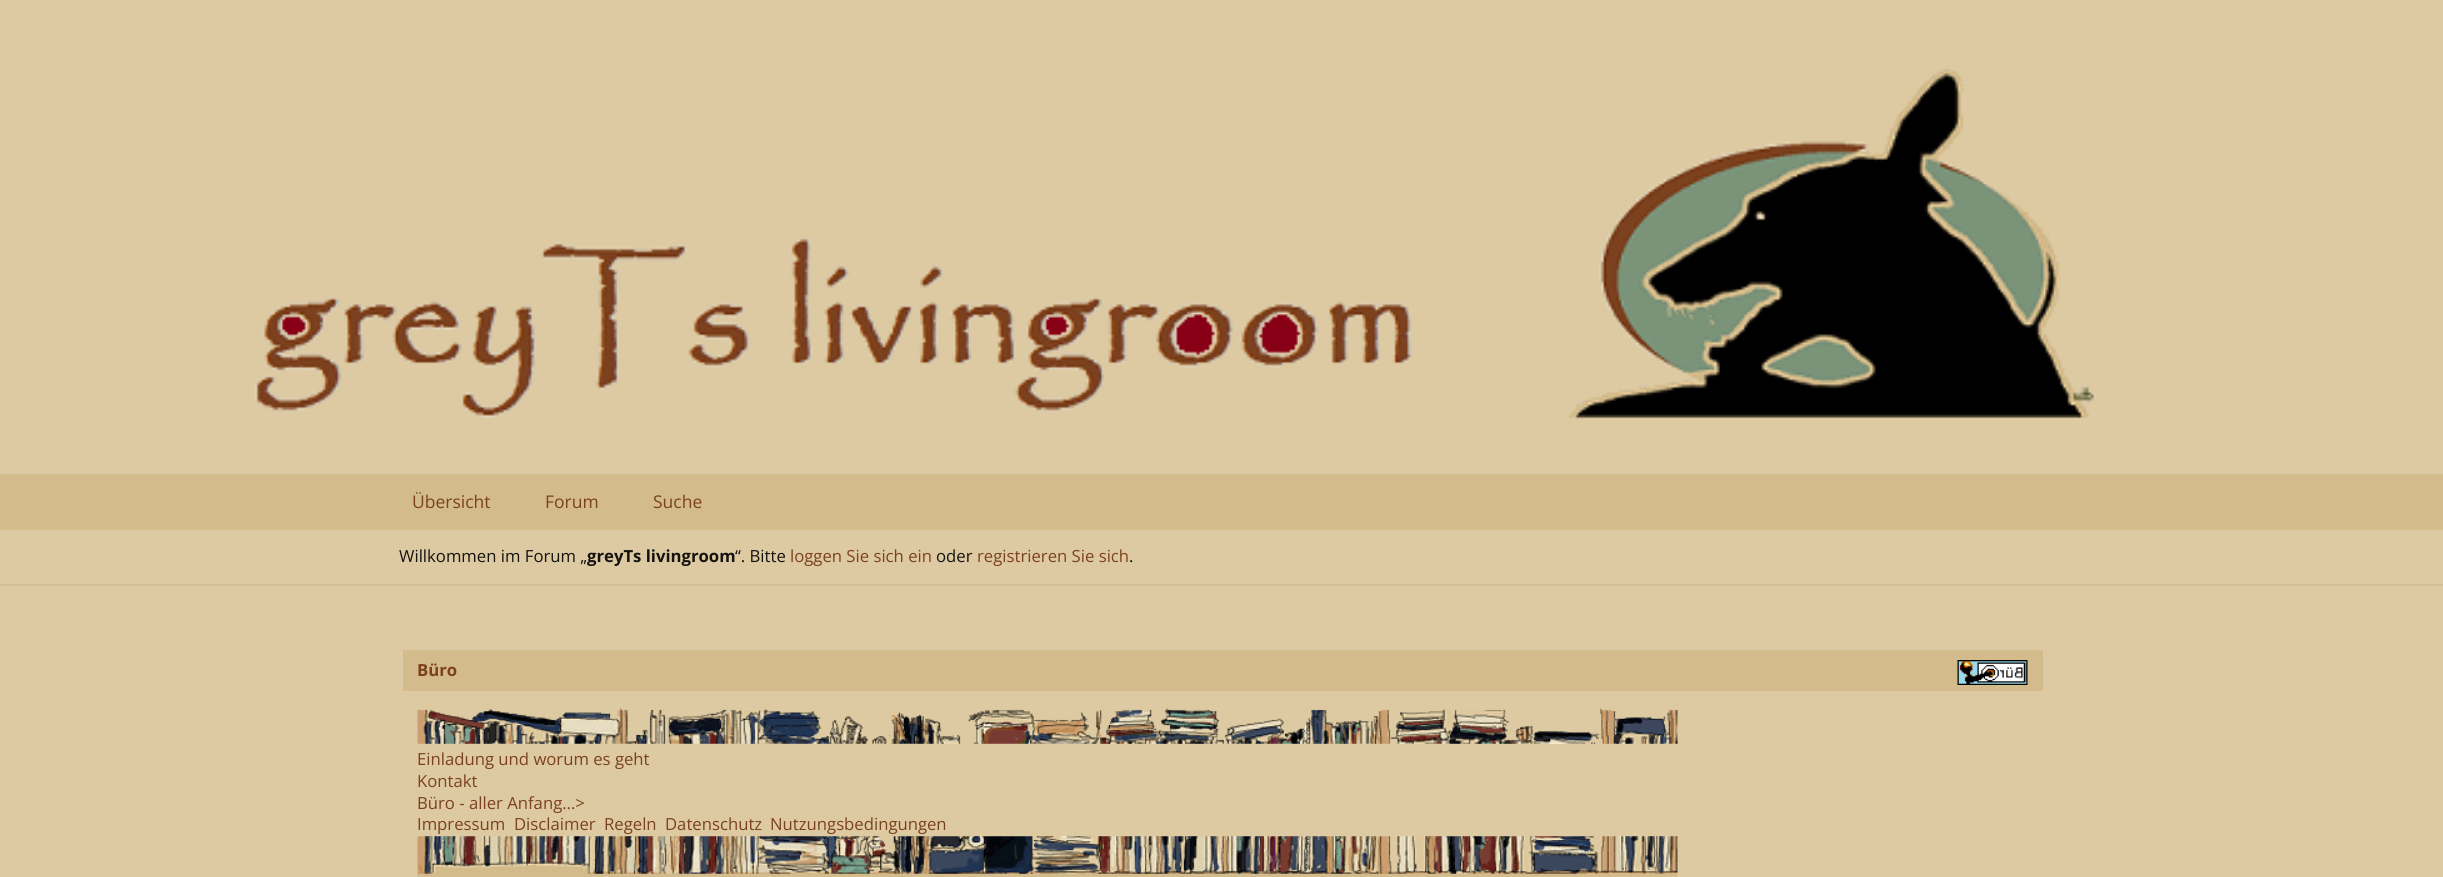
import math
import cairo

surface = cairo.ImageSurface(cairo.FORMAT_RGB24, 2443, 877)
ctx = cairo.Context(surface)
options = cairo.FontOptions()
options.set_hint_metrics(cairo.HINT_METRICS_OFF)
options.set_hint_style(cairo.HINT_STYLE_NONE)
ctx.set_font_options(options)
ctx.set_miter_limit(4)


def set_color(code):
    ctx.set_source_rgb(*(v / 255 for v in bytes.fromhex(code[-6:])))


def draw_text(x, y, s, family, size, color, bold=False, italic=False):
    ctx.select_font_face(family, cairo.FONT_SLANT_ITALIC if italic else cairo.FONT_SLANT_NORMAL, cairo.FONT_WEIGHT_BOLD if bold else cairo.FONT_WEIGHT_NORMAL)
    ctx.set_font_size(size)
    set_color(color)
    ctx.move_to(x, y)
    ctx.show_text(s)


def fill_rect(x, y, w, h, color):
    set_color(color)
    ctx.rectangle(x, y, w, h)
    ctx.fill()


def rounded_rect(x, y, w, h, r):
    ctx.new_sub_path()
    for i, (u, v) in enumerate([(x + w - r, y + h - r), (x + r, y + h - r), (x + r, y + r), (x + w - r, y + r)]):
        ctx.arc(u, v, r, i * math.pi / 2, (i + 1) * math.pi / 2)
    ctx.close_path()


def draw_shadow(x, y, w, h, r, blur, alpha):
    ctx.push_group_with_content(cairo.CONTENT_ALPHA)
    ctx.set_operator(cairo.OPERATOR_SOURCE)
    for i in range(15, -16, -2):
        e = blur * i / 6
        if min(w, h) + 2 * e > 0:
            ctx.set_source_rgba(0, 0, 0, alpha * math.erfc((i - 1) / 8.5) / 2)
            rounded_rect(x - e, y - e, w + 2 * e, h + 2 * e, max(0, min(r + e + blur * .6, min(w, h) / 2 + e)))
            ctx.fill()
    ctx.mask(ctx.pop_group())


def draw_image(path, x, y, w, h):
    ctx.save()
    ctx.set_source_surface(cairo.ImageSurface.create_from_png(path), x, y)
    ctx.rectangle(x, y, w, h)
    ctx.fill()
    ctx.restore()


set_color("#ddcaa2")
ctx.paint()
draw_image("assets/img1.png", 254, 69, 1842, 351)
set_color("#000000")
draw_shadow(0, 531, 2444, 54, 0, 1, 0.1)
fill_rect(0, 474, 2443, 56, "#d3bb8b")
draw_text(412, 508, "Übersicht", "Open Sans", 17.5, "#7c411e")
draw_text(545, 508, "Forum", "Open Sans", 17.5, "#7c411e")
draw_text(653, 508, "Suche", "Open Sans", 17.5, "#7c411e")
fill_rect(0, 530, 2443, 54, "#ddcaa2")
draw_text(399, 562, "Willkommen im Forum „", "Open Sans", 16.7, "#15130f")
draw_text(587, 562, "greyTs livingroom", "Open Sans", 16.7, "#15130f", bold=True)
draw_text(735, 562, "“. Bitte", "Open Sans", 16.7, "#15130f")
draw_text(790, 562, "loggen Sie sich ein", "Open Sans", 16.7, "#7c411e")
draw_text(936, 562, "oder", "Open Sans", 16.7, "#15130f")
draw_text(977, 562, "registrieren Sie sich", "Open Sans", 16.7, "#7c411e")
draw_text(1129, 562, ".", "Open Sans", 16.7, "#15130f")
fill_rect(403, 650, 1640, 41, "#d3bb8b")
draw_text(417, 676, "Büro", "Open Sans", 16.7, "#7c411e", bold=True)
draw_image("assets/img2.png", 1957, 660, 71, 25)
draw_image("assets/img3.png", 417, 708, 1261, 36)
draw_text(417, 765, "Einladung und worum es geht", "Open Sans", 16.7, "#7c411e")
draw_text(417, 787, "Kontakt", "Open Sans", 16.7, "#7c411e")
draw_text(417, 809, "Büro - aller Anfang...>", "Open Sans", 16.7, "#7c411e")
draw_text(417, 830, "Impressum", "Open Sans", 16.7, "#7c411e")
draw_text(514, 830, "Disclaimer", "Open Sans", 16.7, "#7c411e")
draw_text(604, 830, "Regeln", "Open Sans", 16.7, "#7c411e")
draw_text(665, 830, "Datenschutz", "Open Sans", 16.7, "#7c411e")
draw_text(770, 830, "Nutzungsbedingungen", "Open Sans", 16.7, "#7c411e")
draw_image("assets/img4.png", 417, 836, 1261, 41)
surface.write_to_png("output.png")
